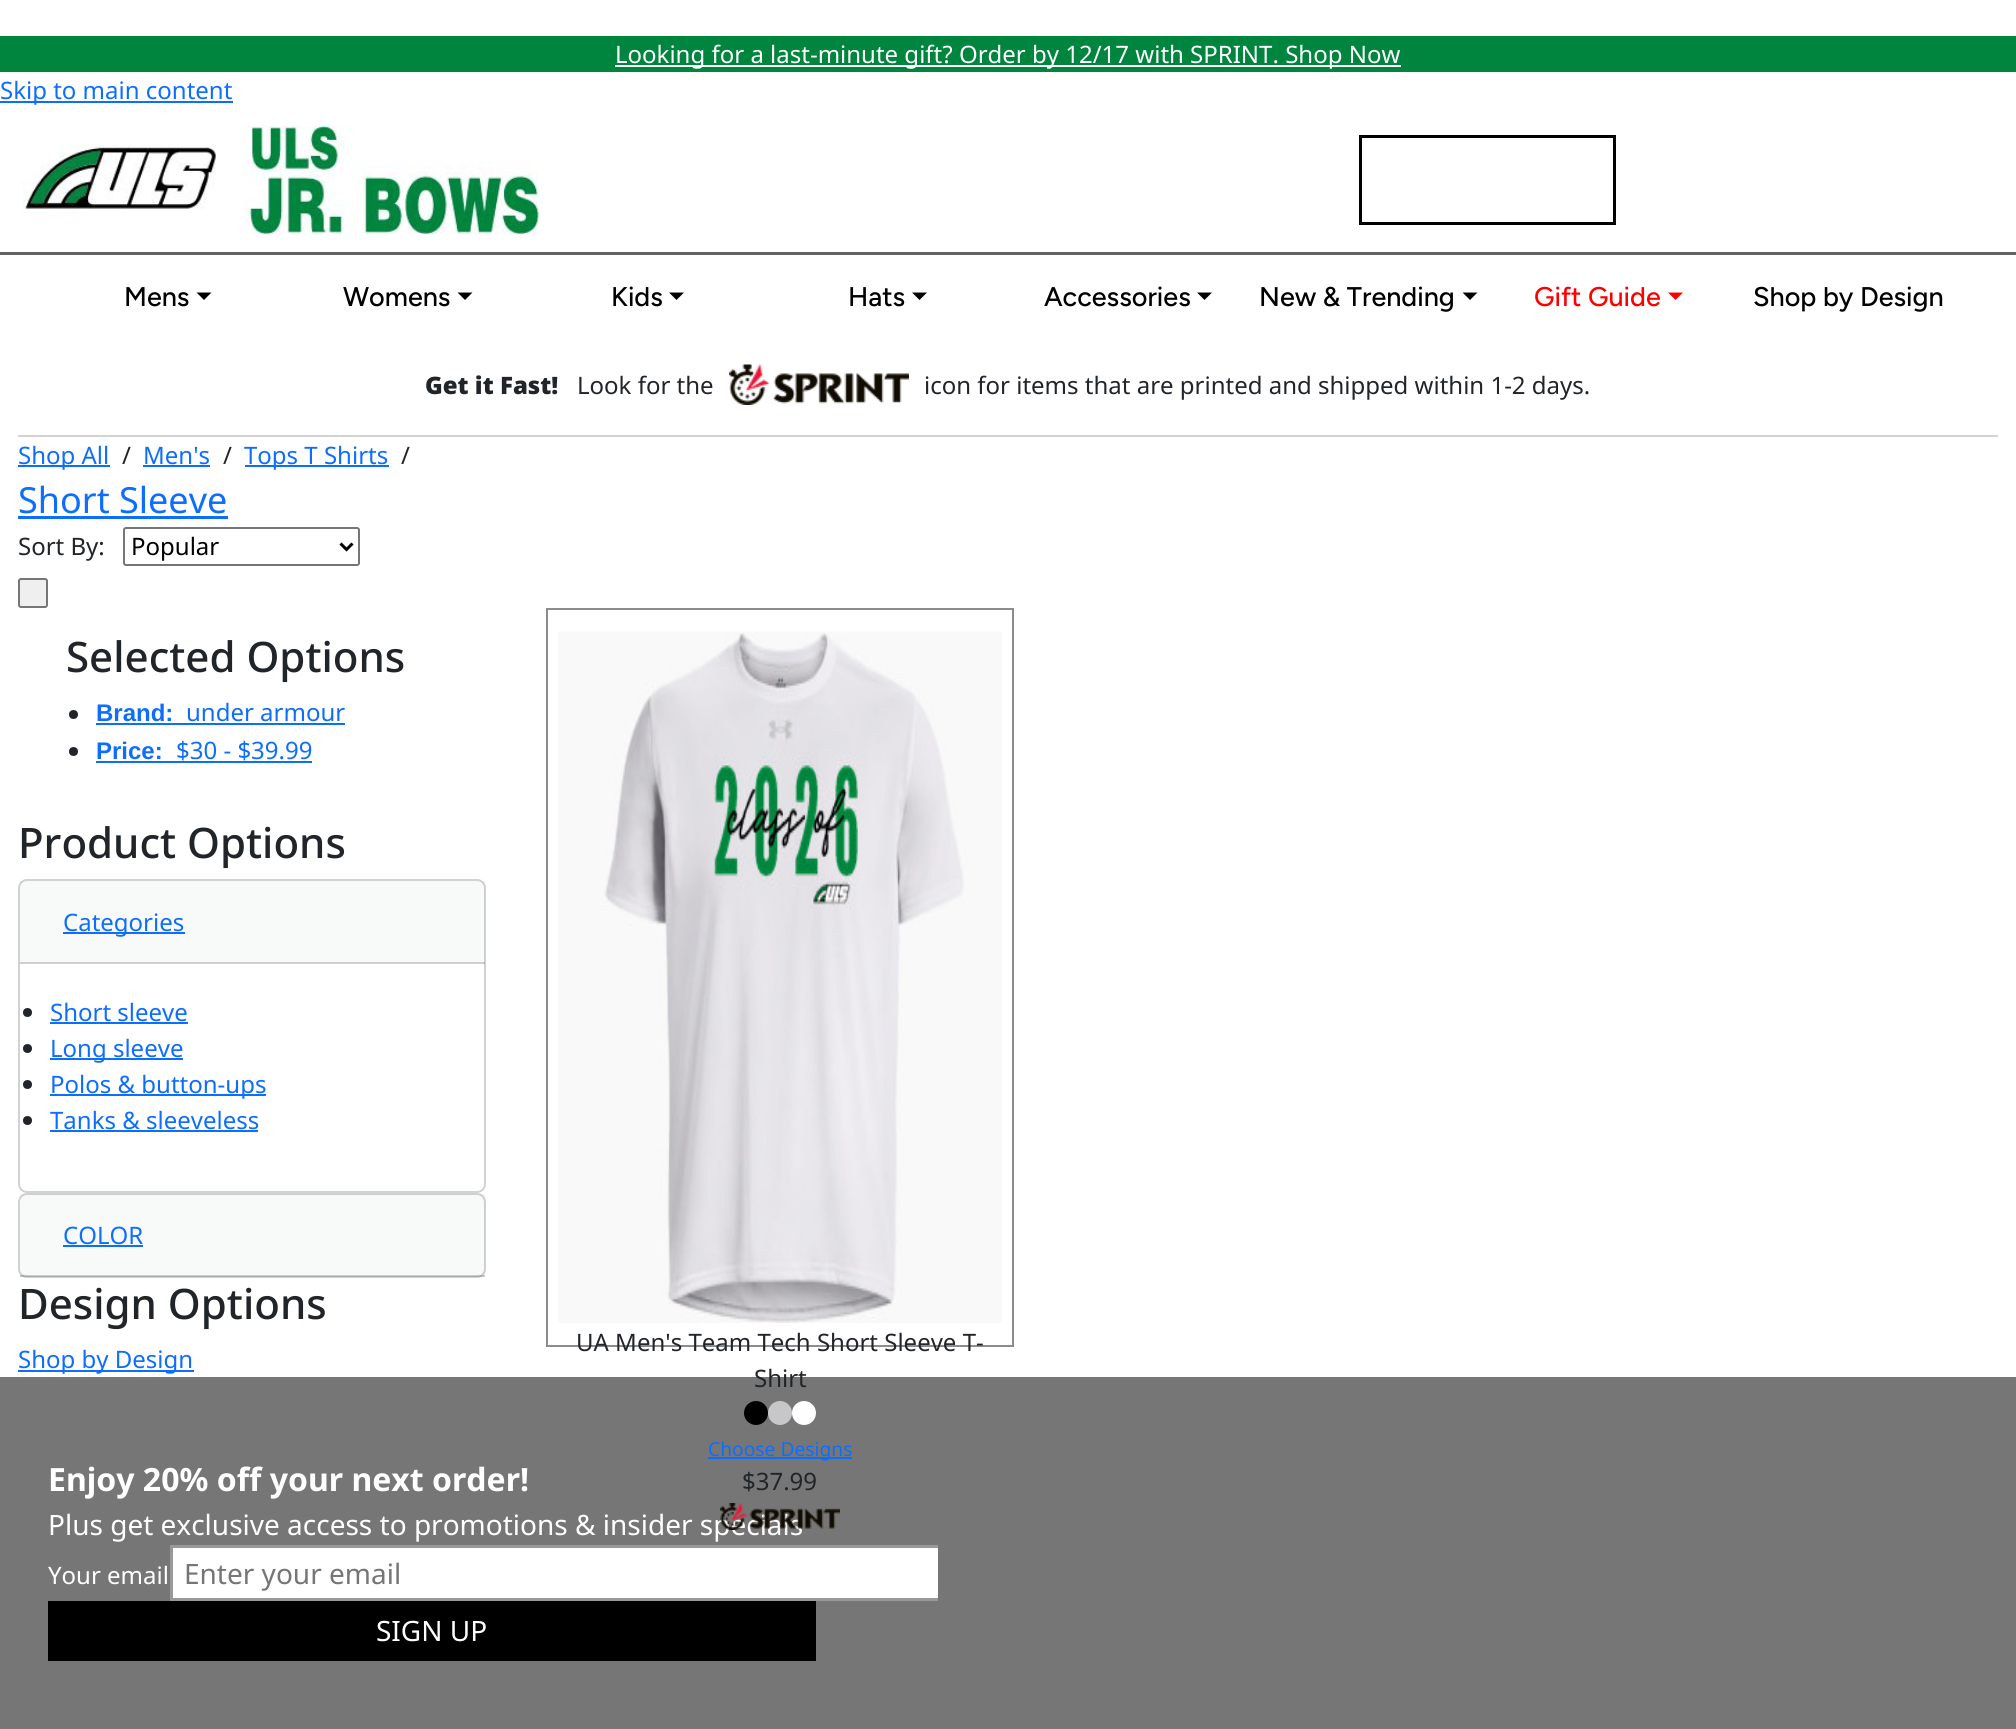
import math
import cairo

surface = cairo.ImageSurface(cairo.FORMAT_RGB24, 2016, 1729)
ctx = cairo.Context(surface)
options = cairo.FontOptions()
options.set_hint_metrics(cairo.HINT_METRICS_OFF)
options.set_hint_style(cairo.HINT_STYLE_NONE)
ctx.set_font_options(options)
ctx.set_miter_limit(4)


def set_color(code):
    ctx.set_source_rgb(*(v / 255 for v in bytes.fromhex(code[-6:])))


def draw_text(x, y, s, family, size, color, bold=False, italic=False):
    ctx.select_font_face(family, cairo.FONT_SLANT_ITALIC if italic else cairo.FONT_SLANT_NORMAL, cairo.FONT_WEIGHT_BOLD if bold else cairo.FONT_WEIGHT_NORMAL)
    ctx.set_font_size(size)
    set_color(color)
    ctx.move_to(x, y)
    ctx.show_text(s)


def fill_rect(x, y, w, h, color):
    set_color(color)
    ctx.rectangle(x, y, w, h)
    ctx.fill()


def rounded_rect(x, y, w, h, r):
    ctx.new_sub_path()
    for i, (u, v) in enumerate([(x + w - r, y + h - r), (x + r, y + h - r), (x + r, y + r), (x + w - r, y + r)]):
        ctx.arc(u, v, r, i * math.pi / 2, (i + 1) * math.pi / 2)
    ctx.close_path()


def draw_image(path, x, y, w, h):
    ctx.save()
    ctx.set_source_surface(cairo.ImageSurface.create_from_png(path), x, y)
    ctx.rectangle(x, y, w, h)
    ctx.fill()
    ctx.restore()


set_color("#ffffff")
ctx.paint()
fill_rect(0, 36, 2016, 36, "#00853e")
fill_rect(615, 65, 786, 2, "#ffffff")
draw_text(615, 63, "Looking for a last-minute gift? Order by 12/17 with SPRINT. Shop Now", "Noto Sans", 24, "#ffffff")
fill_rect(0, 101, 233, 2, "#0d6efd")
draw_text(0, 99, "Skip to main content", "Noto Sans", 24, "#0d6efd")
fill_rect(0, 252, 2016, 3, "#616262")
draw_image("assets/img1.png", 22, 126, 517, 108)
ctx.rectangle(1360.5, 136.5, 254, 87)
set_color("#000000")
ctx.set_line_width(3)
ctx.stroke()
draw_text(124, 306, "Mens", "Figtree Medium", 27, "#000000")
ctx.new_path()
ctx.move_to(196.5, 292.5)
ctx.line_to(211.5, 292.5)
ctx.line_to(204, 300)
ctx.close_path()
ctx.fill()
draw_text(343, 306, "Womens", "Figtree Medium", 27, "#000000")
ctx.new_path()
ctx.move_to(457.5, 292.5)
ctx.line_to(472.5, 292.5)
ctx.line_to(465, 300)
ctx.close_path()
ctx.fill()
draw_text(611, 306, "Kids", "Figtree Medium", 27, "#000000")
ctx.new_path()
ctx.move_to(669, 292.5)
ctx.line_to(684, 292.5)
ctx.line_to(676.5, 300)
ctx.close_path()
ctx.fill()
draw_text(848, 306, "Hats", "Figtree Medium", 27, "#000000")
ctx.new_path()
ctx.move_to(912, 292.5)
ctx.line_to(927, 292.5)
ctx.line_to(919.5, 300)
ctx.close_path()
ctx.fill()
draw_text(1044, 306, "Accessories", "Figtree Medium", 27, "#000000")
ctx.new_path()
ctx.move_to(1197, 292.5)
ctx.line_to(1212, 292.5)
ctx.line_to(1204.5, 300)
ctx.close_path()
ctx.fill()
draw_text(1259, 306, "New & Trending", "Figtree Medium", 27, "#000000")
ctx.new_path()
ctx.move_to(1462.5, 292.5)
ctx.line_to(1477.5, 292.5)
ctx.line_to(1470, 300)
ctx.close_path()
ctx.fill()
draw_text(1534, 306, "Gift Guide", "Figtree Medium", 27, "#ff0000")
ctx.new_path()
ctx.move_to(1668, 292.5)
ctx.line_to(1683, 292.5)
ctx.line_to(1675.5, 300)
ctx.close_path()
ctx.fill()
draw_text(1753, 306, "Shop by Design", "Figtree Medium", 27, "#000000")
fill_rect(18, 435, 1980, 2, "#d3d3d3")
draw_text(425, 394, "Get it Fast!", "Noto Sans Black", 24, "#212529")
draw_text(577, 394, "Look for the", "Noto Sans", 24, "#212529")
draw_image("assets/img2.png", 729, 364, 180, 41)
draw_text(924, 394, "icon for items that are printed and shipped within 1-2 days.", "Noto Sans", 24, "#212529")
fill_rect(18, 465, 92, 2, "#0d6efd")
draw_text(18, 464, "Shop All", "Noto Sans", 24, "#0d6efd")
draw_text(122, 464, "/", "Noto Sans", 24, "#212529")
draw_text(143, 464, "Men's", "Noto Sans", 24, "#0d6efd")
fill_rect(143, 465, 67, 2, "#0d6efd")
draw_text(223, 464, "/", "Noto Sans", 24, "#212529")
fill_rect(245, 465, 144, 2, "#0d6efd")
draw_text(244, 464, "Tops T Shirts", "Noto Sans", 24, "#0d6efd")
draw_text(401, 464, "/", "Noto Sans", 24, "#212529")
draw_text(18, 513, "Short Sleeve", "Noto Sans", 36, "#0d6efd")
fill_rect(18, 516, 210, 3, "#0d6efd")
draw_text(18, 555, "Sort By:", "Noto Sans", 24, "#212529")
rounded_rect(124, 528, 235, 37, 2)
set_color("#767676")
ctx.set_line_width(2)
ctx.stroke()
ctx.new_path()
ctx.move_to(340.5, 543.5)
ctx.line_to(346.5, 549.5)
ctx.line_to(352.5, 543.5)
set_color("#000000")
ctx.set_line_width(3)
ctx.stroke()
draw_text(131, 555, "Popular", "Noto Sans", 24, "#000000")
set_color("#efefef")
rounded_rect(19, 579, 28, 28, 2)
ctx.fill_preserve()
set_color("#767676")
ctx.set_line_width(2)
ctx.stroke()
draw_text(66, 672, "Selected Options", "Noto Sans Medium", 42, "#212529")
ctx.new_path()
ctx.arc(73.5, 714.5, 4.5, 0, 2 * math.pi)
ctx.fill()
draw_text(96, 721, "Brand:", "Liberation Sans", 24, "#0d6efd", bold=True)
fill_rect(96, 723, 249, 2, "#0d6efd")
draw_text(186, 721, "under armour", "Noto Sans", 24, "#0d6efd")
set_color("#212529")
ctx.new_path()
ctx.arc(73.5, 751.5, 4.5, 0, 2 * math.pi)
ctx.fill()
draw_text(96, 759, "Price:", "Liberation Sans", 24, "#0d6efd", bold=True)
fill_rect(96, 761, 216, 2, "#0d6efd")
draw_text(176, 759, "$30 - $39.99", "Noto Sans", 24, "#0d6efd")
draw_text(18, 858, "Product Options", "Noto Sans Medium", 42, "#212529")
rounded_rect(19, 880, 466, 312, 8)
set_color("#d2d2d2")
ctx.stroke()
ctx.set_source_rgba(0.129, 0.145, 0.161, 0.03)
ctx.rectangle(20, 881, 465, 82)
ctx.fill()
ctx.set_source_rgba(0, 0, 0, 0.18)
ctx.rectangle(20, 962, 465, 2)
ctx.fill()
fill_rect(63, 932, 122, 2, "#0d6efd")
draw_text(63, 931, "Categories", "Noto Sans", 24, "#0d6efd")
set_color("#212529")
ctx.new_path()
ctx.arc(27.5, 1012.5, 4.5, 0, 2 * math.pi)
ctx.fill()
draw_text(50, 1021, "Short sleeve", "Noto Sans", 24, "#0d6efd")
fill_rect(50, 1022, 138, 2, "#0d6efd")
set_color("#212529")
ctx.new_path()
ctx.arc(27.5, 1048.5, 4.5, 0, 2 * math.pi)
ctx.fill()
fill_rect(50, 1058, 133, 2, "#0d6efd")
draw_text(50, 1057, "Long sleeve", "Noto Sans", 24, "#0d6efd")
set_color("#212529")
ctx.new_path()
ctx.arc(27.5, 1084.5, 4.5, 0, 2 * math.pi)
ctx.fill()
fill_rect(50, 1094, 216, 2, "#0d6efd")
draw_text(50, 1093, "Polos & button-ups", "Noto Sans", 24, "#0d6efd")
set_color("#212529")
ctx.new_path()
ctx.arc(27.5, 1120.5, 4.5, 0, 2 * math.pi)
ctx.fill()
draw_text(50, 1129, "Tanks & sleeveless", "Noto Sans", 24, "#0d6efd")
fill_rect(50, 1130, 208, 2, "#0d6efd")
rounded_rect(19, 1194, 466, 83, 8)
set_color("#d2d2d2")
ctx.stroke()
ctx.set_source_rgba(0.129, 0.145, 0.161, 0.03)
ctx.rectangle(20, 1194, 465, 83)
ctx.fill()
ctx.set_source_rgba(0, 0, 0, 0.18)
ctx.rectangle(20, 1275, 465, 2)
ctx.fill()
draw_text(63, 1244, "COLOR", "Noto Sans", 24, "#0d6efd")
fill_rect(63, 1245, 80, 2, "#0d6efd")
draw_text(18, 1319, "Design Options", "Noto Sans Medium", 42, "#212529")
fill_rect(18, 1370, 176, 2, "#0d6efd")
draw_text(18, 1368, "Shop by Design", "Noto Sans", 24, "#0d6efd")
ctx.rectangle(547, 609, 466, 737)
set_color("#8c8c8c")
ctx.stroke()
draw_image("assets/img3.png", 558, 631, 444, 692)
draw_text(576, 1351, "UA Men's Team Tech Short Sleeve T-", "Noto Sans", 24, "#212529")
fill_rect(0, 1377, 2016, 352, "#767676")
draw_text(754, 1387, "Shirt", "Noto Sans", 24, "#212529")
set_color("#000000")
ctx.new_path()
ctx.arc(756, 1413, 12, 0, 2 * math.pi)
ctx.fill()
set_color("#c7c7c9")
ctx.arc(780, 1413, 12, 0, 2 * math.pi)
ctx.fill()
set_color("#fefefe")
ctx.arc(804, 1413, 12, 0, 2 * math.pi)
ctx.fill()
fill_rect(708, 1457, 144, 2, "#0d6efd")
draw_text(708, 1456, "Choose Designs", "Noto Sans", 19.25, "#0d6efd")
draw_text(742, 1490, "$37.99", "Noto Sans", 24, "#212529")
draw_text(48, 1535, "Plus get exclusive access to promotions & insider specials", "Noto Sans", 28, "#ffffff")
draw_image("assets/img4.png", 720, 1503, 120, 27)
draw_text(48, 1491, "Enjoy 20% off your next order!", "Noto Sans", 32, "#ffffff", bold=True)
draw_text(48, 1584, "Your email", "Noto Sans", 24, "#ffffff")
fill_rect(173, 1548, 765, 50, "#ffffff")
fill_rect(170, 1545, 768, 3, "#999999")
fill_rect(170, 1598, 768, 3, "#999999")
fill_rect(170, 1545, 3, 56, "#999999")
draw_text(184, 1584, "Enter your email", "Noto Sans", 28, "#757575")
fill_rect(48, 1601, 768, 60, "#000000")
draw_text(376, 1641, "SIGN UP", "Noto Sans", 28, "#ffffff")
surface.write_to_png("output.png")
